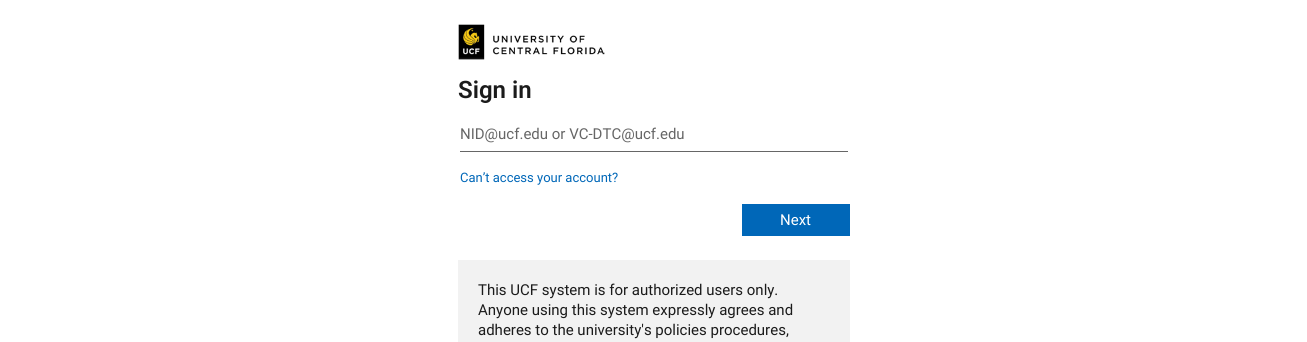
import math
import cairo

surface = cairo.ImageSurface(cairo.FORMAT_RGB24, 1307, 342)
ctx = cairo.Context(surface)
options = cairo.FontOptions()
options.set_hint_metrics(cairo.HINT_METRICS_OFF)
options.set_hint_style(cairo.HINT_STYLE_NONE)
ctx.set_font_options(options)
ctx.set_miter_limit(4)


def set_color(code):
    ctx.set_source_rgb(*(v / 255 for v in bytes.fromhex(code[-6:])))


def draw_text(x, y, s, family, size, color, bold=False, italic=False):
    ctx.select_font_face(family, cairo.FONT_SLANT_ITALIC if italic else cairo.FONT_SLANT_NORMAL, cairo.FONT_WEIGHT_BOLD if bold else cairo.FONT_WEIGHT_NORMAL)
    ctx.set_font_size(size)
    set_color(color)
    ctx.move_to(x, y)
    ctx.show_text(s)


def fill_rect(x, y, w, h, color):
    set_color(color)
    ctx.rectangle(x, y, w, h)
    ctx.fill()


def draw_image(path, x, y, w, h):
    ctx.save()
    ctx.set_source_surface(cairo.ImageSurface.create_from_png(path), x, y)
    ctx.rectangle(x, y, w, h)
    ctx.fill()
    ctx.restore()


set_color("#ffffff")
ctx.paint()
draw_image("assets/img1.png", 458, 24, 147, 36)
draw_text(458, 98, "Sign in", "Roboto SemiBold", 24, "#1b1b1b")
fill_rect(460, 151, 388, 1, "#666666")
draw_text(460, 139, "NID@ucf.edu or VC-DTC@ucf.edu", "Roboto", 15, "#666666")
draw_text(460, 182, "Can’t access your account?", "Roboto", 13, "#0067b8")
fill_rect(742, 204, 108, 32, "#0067b8")
draw_text(780, 225, "Next", "Roboto", 15, "#ffffff")
fill_rect(458, 260, 392, 82, "#f2f2f2")
draw_text(478, 295, "This UCF system is for authorized users only.", "Roboto", 15, "#1b1b1b")
draw_text(478, 315, "Anyone using this system expressly agrees and", "Roboto", 15, "#1b1b1b")
draw_text(478, 335, "adheres to the university's policies procedures,", "Roboto", 15, "#1b1b1b")
surface.write_to_png("output.png")
